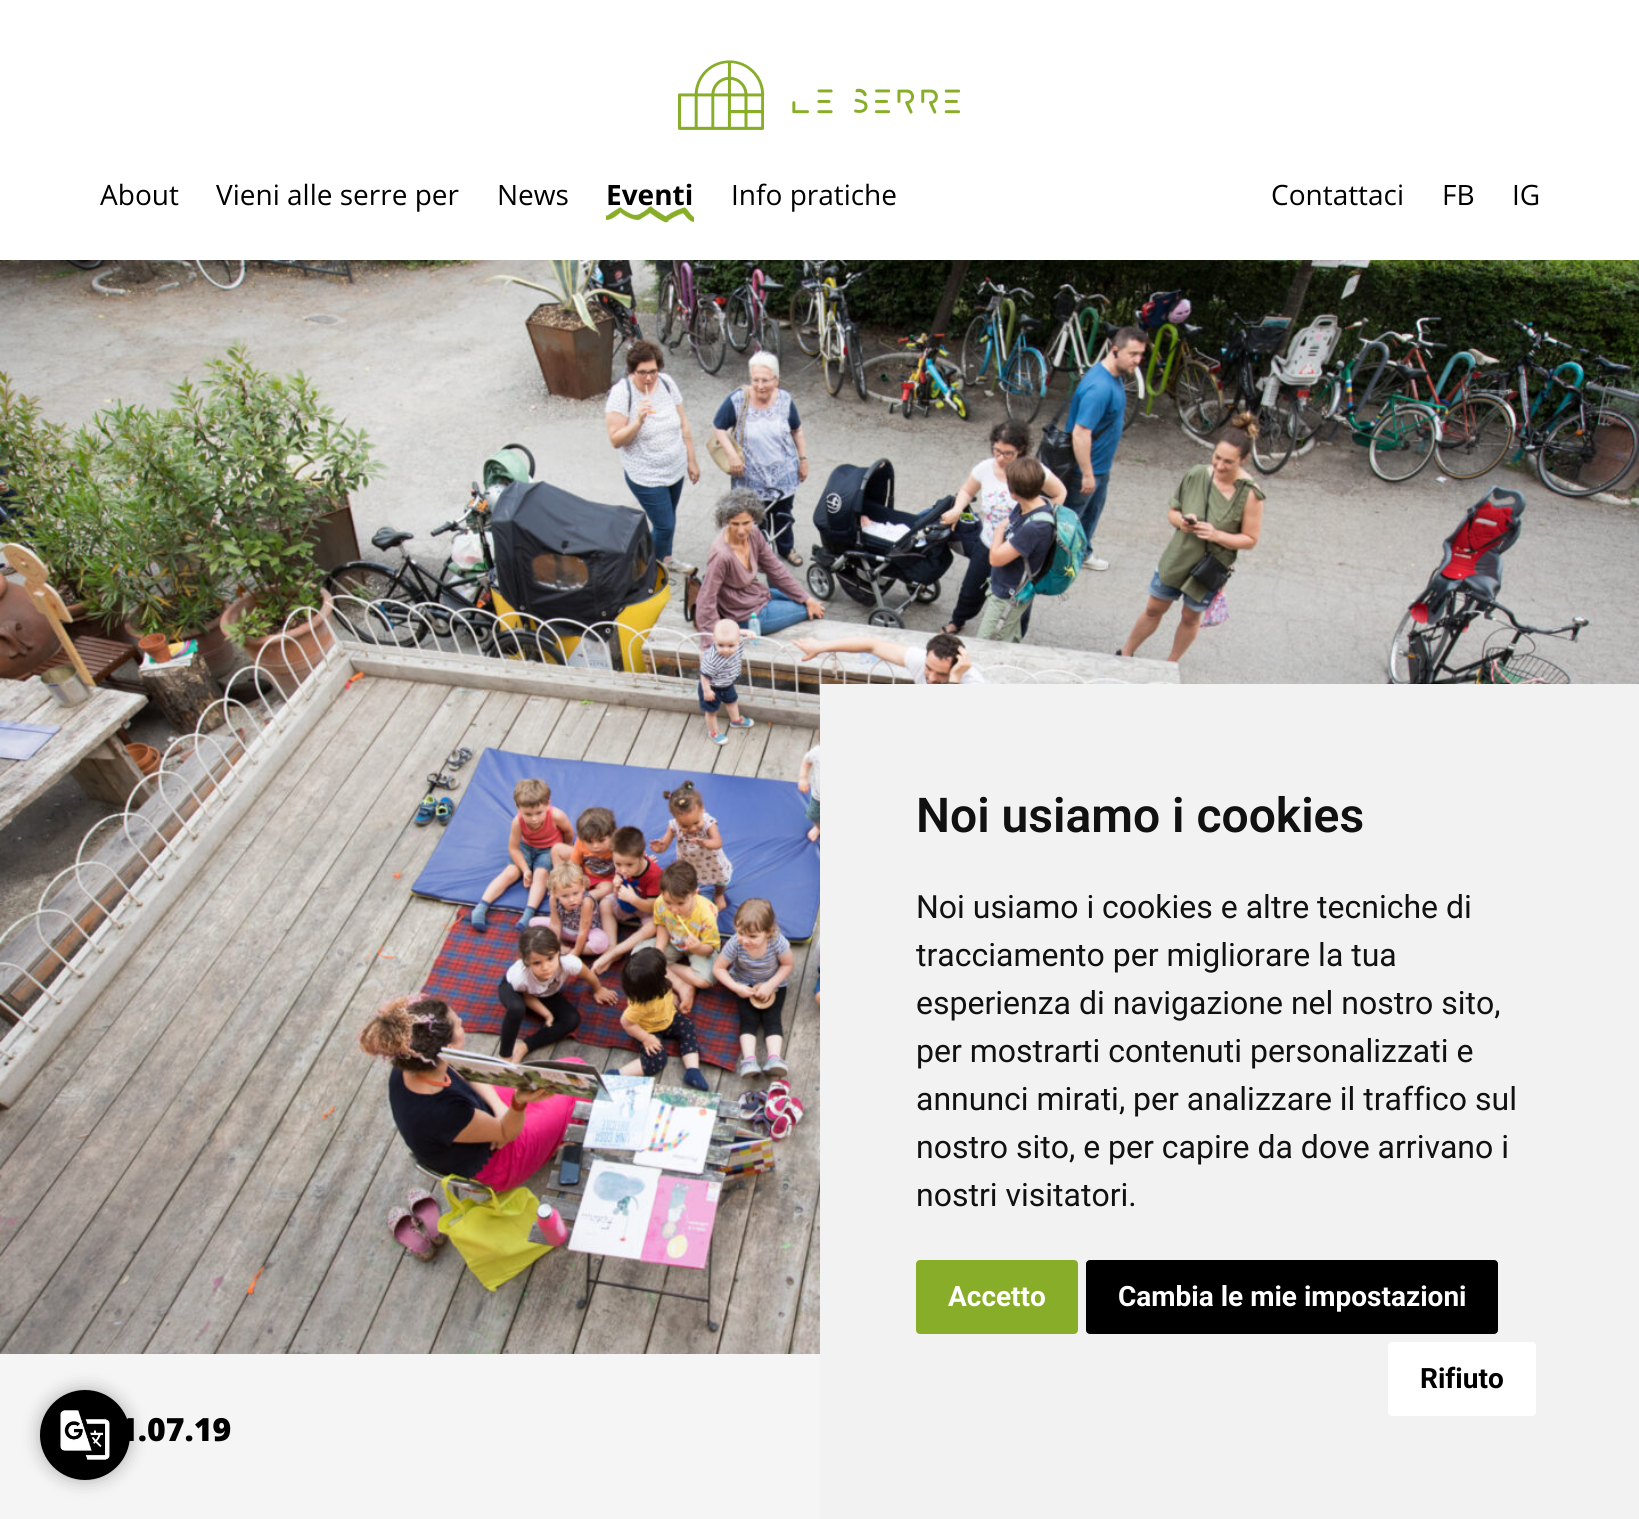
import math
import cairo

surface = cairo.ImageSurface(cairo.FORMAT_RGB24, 1639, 1519)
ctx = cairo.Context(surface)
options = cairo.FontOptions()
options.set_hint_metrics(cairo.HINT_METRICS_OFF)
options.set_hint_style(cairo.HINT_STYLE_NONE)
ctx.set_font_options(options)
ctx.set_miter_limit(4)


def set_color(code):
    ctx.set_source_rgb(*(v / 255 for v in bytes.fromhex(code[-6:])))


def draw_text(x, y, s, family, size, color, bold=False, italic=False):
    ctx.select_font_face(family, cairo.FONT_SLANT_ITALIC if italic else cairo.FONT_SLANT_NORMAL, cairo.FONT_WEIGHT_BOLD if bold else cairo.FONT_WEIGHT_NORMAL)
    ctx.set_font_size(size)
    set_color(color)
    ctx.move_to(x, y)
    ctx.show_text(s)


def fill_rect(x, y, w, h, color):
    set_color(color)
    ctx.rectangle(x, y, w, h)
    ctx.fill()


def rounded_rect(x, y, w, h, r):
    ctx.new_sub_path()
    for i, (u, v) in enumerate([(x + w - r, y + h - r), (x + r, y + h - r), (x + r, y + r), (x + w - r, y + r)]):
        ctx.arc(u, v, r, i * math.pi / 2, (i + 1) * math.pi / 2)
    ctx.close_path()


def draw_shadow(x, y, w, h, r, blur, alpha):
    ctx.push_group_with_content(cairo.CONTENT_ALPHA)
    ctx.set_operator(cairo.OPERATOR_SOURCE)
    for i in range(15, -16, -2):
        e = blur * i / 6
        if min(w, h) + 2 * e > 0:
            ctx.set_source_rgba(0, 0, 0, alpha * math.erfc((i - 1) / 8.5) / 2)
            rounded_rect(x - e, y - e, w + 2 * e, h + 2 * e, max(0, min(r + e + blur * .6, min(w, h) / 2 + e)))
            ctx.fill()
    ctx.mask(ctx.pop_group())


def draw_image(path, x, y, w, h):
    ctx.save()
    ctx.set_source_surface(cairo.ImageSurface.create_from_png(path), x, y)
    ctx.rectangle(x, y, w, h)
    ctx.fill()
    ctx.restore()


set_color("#ffffff")
ctx.paint()
draw_image("assets/img1.png", 678, 60, 282, 70)
draw_text(100, 205, "About", "Open Sans", 28, "#000000")
draw_text(216, 205, "Vieni alle serre per", "Open Sans", 28, "#000000")
draw_text(497, 205, "News", "Open Sans", 28, "#000000")
draw_text(606, 205, "Eventi", "Open Sans", 28, "#000000", bold=True)
draw_image("assets/img2.png", 606, 206, 88, 17)
draw_text(731, 205, "Info pratiche", "Open Sans", 28, "#000000")
draw_text(1271, 205, "Contattaci", "Open Sans", 28, "#000000")
draw_text(1442, 205, "FB", "Open Sans", 28, "#000000")
draw_text(1512, 205, "IG", "Open Sans", 28, "#000000")
fill_rect(0, 1354, 820, 165, "#f5f5f5")
draw_image("assets/img3.png", 0, 260, 1639, 1094)
draw_text(119, 1441, "1.07.19", "Open Sans ExtraBold", 32, "#000000")
fill_rect(820, 684, 819, 835, "#f2f2f2")
draw_text(916, 832, "Noi usiamo i cookies", "Roboto SemiBold", 48, "#111111")
draw_text(916, 918, "Noi usiamo i cookies e altre tecniche di", "Roboto", 32, "#111111")
draw_text(916, 966, "tracciamento per migliorare la tua", "Roboto", 32, "#111111")
draw_text(916, 1014, "esperienza di navigazione nel nostro sito,", "Roboto", 32, "#111111")
draw_text(916, 1062, "per mostrarti contenuti personalizzati e", "Roboto", 32, "#111111")
draw_text(916, 1110, "annunci mirati, per analizzare il traffico sul", "Roboto", 32, "#111111")
draw_text(916, 1158, "nostro sito, e per capire da dove arrivano i", "Roboto", 32, "#111111")
draw_text(916, 1206, "nostri visitatori.", "Roboto", 32, "#111111")
set_color("#88ad28")
rounded_rect(916, 1260, 162, 74, 4)
ctx.fill()
draw_text(948, 1306, "Accetto", "Roboto", 28, "#ffffff", bold=True)
set_color("#000000")
rounded_rect(1086, 1260, 412, 74, 4)
ctx.fill()
draw_text(1118, 1306, "Cambia le mie impostazioni", "Roboto", 28, "#ffffff", bold=True)
rounded_rect(1388, 1342, 148, 74, 4)
ctx.fill()
draw_text(1420, 1388, "Rifiuto", "Roboto", 28, "#000000", bold=True)
set_color("#000000")
draw_shadow(40, 1390, 90, 90, 45, 9, 0.3)
set_color("#000000")
ctx.arc(85, 1435, 45, 0, 2 * math.pi)
ctx.fill()
draw_image("assets/img4.png", 60, 1410, 50, 50)
surface.write_to_png("output.png")
